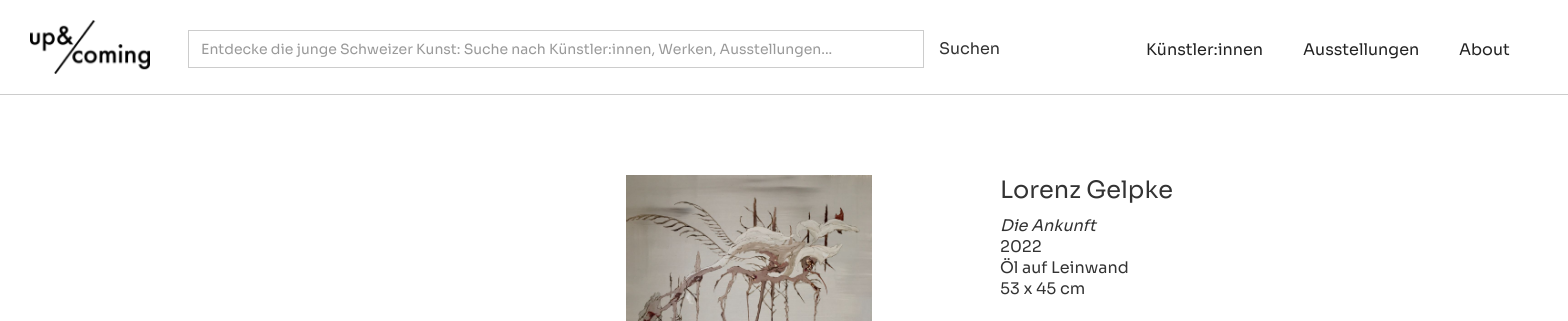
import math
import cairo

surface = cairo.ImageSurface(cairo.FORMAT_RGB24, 1568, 321)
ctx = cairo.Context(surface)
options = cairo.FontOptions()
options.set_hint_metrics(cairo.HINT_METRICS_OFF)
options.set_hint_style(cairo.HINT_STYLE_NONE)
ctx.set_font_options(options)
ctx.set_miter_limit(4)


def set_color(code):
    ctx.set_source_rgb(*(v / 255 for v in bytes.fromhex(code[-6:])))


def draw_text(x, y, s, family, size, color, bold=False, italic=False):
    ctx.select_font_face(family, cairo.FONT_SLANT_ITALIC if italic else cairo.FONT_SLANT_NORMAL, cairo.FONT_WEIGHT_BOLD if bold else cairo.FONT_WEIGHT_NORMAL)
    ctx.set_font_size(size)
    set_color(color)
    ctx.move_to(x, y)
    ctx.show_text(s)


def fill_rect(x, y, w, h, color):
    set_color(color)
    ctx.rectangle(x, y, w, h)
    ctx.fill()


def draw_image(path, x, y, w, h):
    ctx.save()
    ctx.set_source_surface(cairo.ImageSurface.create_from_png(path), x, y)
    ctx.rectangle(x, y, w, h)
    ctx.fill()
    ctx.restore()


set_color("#ffffff")
ctx.paint()
draw_image("assets/img1.png", 30, 20, 120, 54)
ctx.rectangle(188.5, 30.5, 735, 37)
set_color("#cccccc")
ctx.set_line_width(1)
ctx.stroke()
draw_text(201, 54, "Entdecke die junge Schweizer Kunst: Suche nach Künstler:innen, Werken, Ausstellungen...", "Sora", 14, "#999999")
draw_text(939, 54, "Suchen", "Sora", 16, "#333333")
draw_text(1146, 55, "Künstler:innen", "Sora", 16, "#222222")
draw_text(1303, 55, "Ausstellungen", "Sora", 16, "#222222")
draw_text(1459, 55, "About", "Sora", 16, "#222222")
fill_rect(0, 94, 1568, 1, "#cccccc")
draw_image("assets/img2.png", 626, 175, 246, 146)
draw_text(1000, 198, "Lorenz Gelpke", "Sora", 24, "#333333")
draw_text(1000, 231, "Die Ankunft", "Sora", 16, "#333333", italic=True)
draw_text(1000, 252, "2022", "Sora", 16, "#333333")
draw_text(1000, 273, "Öl auf Leinwand", "Sora", 16, "#333333")
draw_text(1000, 294, "53 x 45 cm", "Sora", 16, "#333333")
surface.write_to_png("output.png")
